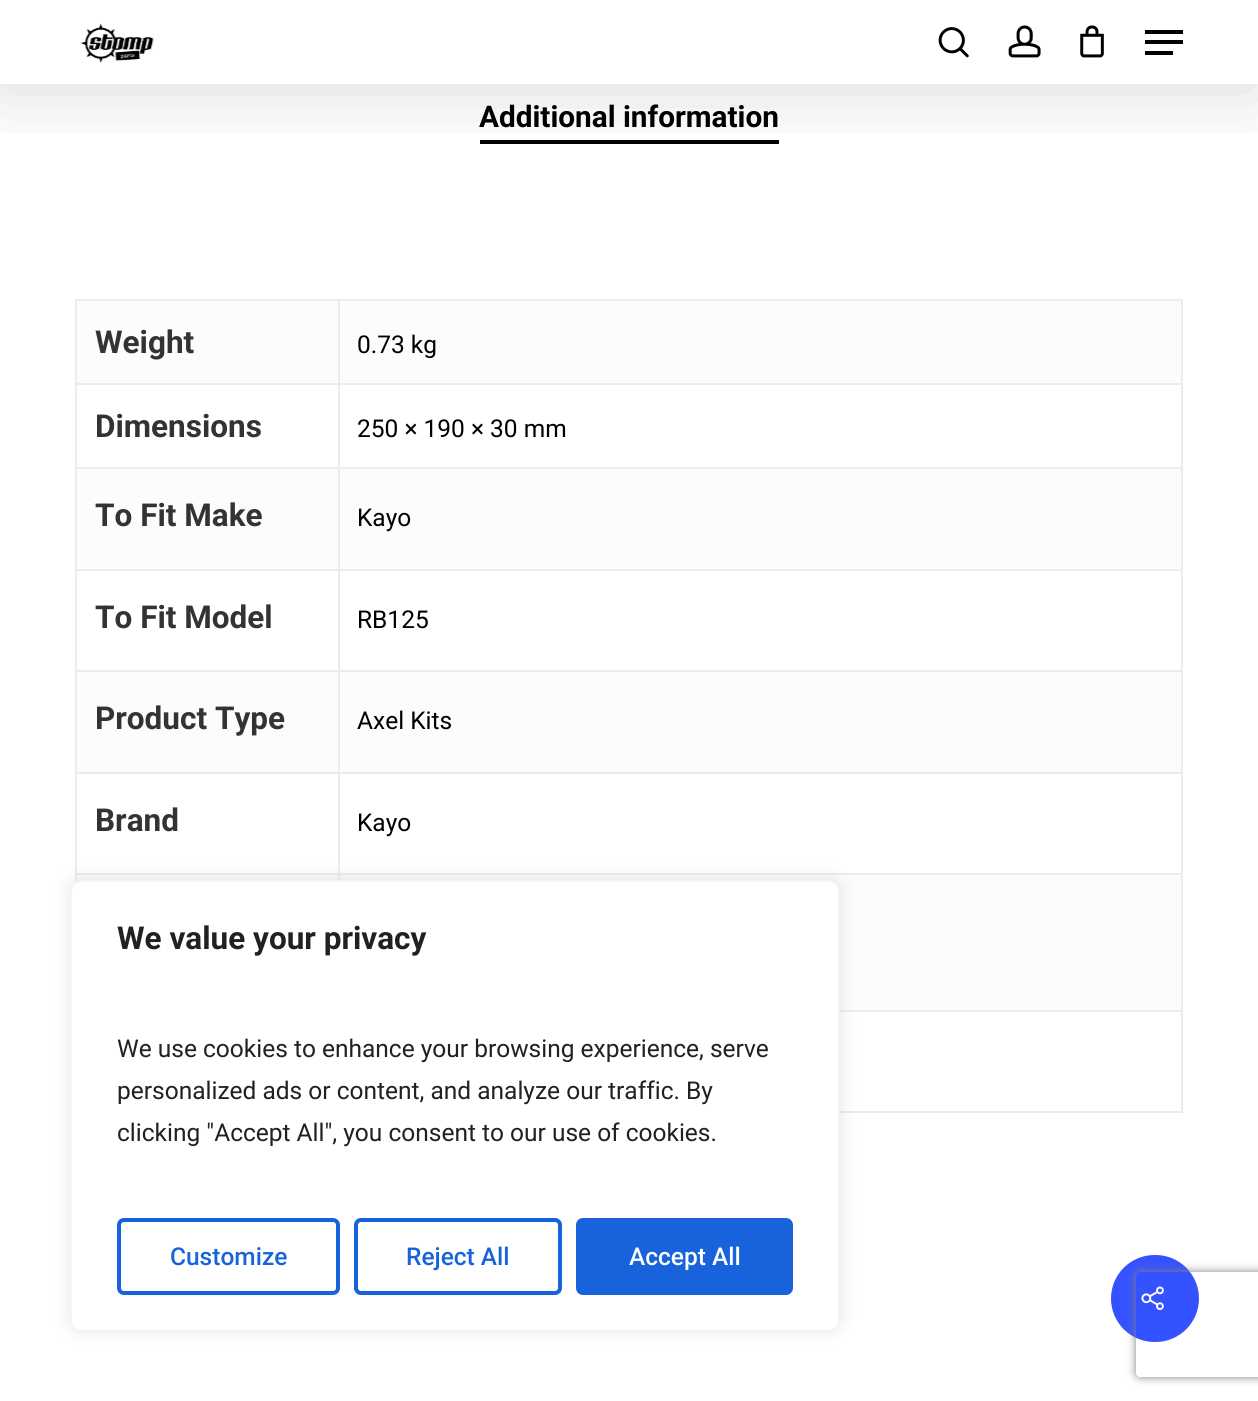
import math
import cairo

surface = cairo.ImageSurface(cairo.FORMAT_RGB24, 1258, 1401)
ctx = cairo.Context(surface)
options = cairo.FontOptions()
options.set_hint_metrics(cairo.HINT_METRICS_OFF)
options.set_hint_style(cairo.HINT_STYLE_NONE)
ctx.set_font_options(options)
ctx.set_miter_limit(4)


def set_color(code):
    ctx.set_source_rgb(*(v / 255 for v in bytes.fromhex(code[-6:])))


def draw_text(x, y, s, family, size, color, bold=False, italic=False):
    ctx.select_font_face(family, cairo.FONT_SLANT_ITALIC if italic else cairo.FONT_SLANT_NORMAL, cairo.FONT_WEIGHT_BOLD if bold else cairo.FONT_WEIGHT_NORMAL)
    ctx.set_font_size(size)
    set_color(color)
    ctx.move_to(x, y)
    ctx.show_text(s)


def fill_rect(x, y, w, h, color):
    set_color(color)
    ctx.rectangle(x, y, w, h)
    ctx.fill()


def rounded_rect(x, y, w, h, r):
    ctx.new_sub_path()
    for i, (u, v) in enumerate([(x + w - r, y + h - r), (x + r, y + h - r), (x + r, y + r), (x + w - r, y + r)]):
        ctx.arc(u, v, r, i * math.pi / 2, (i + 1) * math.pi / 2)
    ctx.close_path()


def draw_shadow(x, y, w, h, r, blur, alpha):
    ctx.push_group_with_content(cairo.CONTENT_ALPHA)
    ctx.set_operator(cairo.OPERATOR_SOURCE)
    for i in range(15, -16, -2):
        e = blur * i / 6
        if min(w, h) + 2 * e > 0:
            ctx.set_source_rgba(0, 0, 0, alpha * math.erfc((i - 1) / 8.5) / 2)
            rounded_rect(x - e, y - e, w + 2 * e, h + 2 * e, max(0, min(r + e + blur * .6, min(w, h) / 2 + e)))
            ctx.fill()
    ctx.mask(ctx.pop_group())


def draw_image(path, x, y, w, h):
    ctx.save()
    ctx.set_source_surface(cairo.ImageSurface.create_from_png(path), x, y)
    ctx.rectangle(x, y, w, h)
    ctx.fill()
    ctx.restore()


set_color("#ffffff")
ctx.paint()
fill_rect(480, 140, 299, 4, "#000000")
ctx.save()
ctx.rectangle(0, 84, 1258, 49)
ctx.clip()
set_color("#000000")
draw_shadow(0, -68, 1258, 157, 0, 39.5, 0.15)
ctx.restore()
draw_image("assets/img1.png", 80, 23, 74, 40)
draw_image("assets/img2.png", 938, 27, 31, 31)
draw_image("assets/img3.png", 1008, 25, 33, 33)
draw_image("assets/img4.png", 1080, 25, 24, 33)
fill_rect(1145, 30, 38, 4, "#000000")
fill_rect(1145, 51, 28, 4, "#000000")
fill_rect(1145, 40, 38, 4, "#000000")
draw_text(479, 127, "Additional information", "Roboto", 29.75, "#000000", bold=True)
fill_rect(75, 299, 1108, 2, "#ececec")
fill_rect(77, 301, 1104, 82, "#fcfcfc")
fill_rect(1181, 299, 2, 814, "#ececec")
fill_rect(77, 469, 1104, 100, "#fcfcfc")
fill_rect(77, 672, 1104, 100, "#fcfcfc")
fill_rect(77, 875, 1104, 135, "#fcfcfc")
fill_rect(338, 873, 2, 7, "#ececec")
fill_rect(338, 873, 845, 2, "#ececec")
fill_rect(338, 772, 2, 103, "#ececec")
fill_rect(338, 772, 845, 2, "#ececec")
fill_rect(338, 670, 2, 104, "#ececec")
fill_rect(338, 670, 845, 2, "#ececec")
fill_rect(338, 569, 2, 103, "#ececec")
fill_rect(338, 569, 845, 2, "#ececec")
fill_rect(338, 467, 2, 104, "#ececec")
fill_rect(338, 467, 845, 2, "#ececec")
fill_rect(338, 383, 2, 86, "#ececec")
fill_rect(338, 383, 845, 2, "#ececec")
fill_rect(338, 299, 2, 86, "#ececec")
fill_rect(75, 873, 2, 9, "#ececec")
fill_rect(75, 873, 265, 2, "#ececec")
fill_rect(75, 772, 2, 103, "#ececec")
fill_rect(75, 772, 265, 2, "#ececec")
fill_rect(75, 670, 2, 104, "#ececec")
fill_rect(75, 670, 265, 2, "#ececec")
fill_rect(75, 569, 2, 103, "#ececec")
fill_rect(75, 569, 265, 2, "#ececec")
fill_rect(75, 467, 2, 104, "#ececec")
fill_rect(75, 467, 265, 2, "#ececec")
fill_rect(75, 383, 2, 86, "#ececec")
fill_rect(75, 383, 265, 2, "#ececec")
fill_rect(75, 299, 2, 86, "#ececec")
draw_text(95, 353, "Weight", "Roboto", 31.5, "#333333", bold=True)
draw_text(357, 353, "0.73 kg", "Roboto", 24.5, "#000000")
fill_rect(840, 1111, 343, 2, "#ececec")
draw_text(95, 437, "Dimensions", "Roboto", 31.5, "#333333", bold=True)
draw_text(357, 437, "250 × 190 × 30 mm", "Roboto", 24.5, "#000000")
draw_text(95, 526, "To Fit Make", "Roboto", 31.5, "#333333", bold=True)
draw_text(357, 526, "Kayo", "Roboto", 24.5, "#000000")
draw_text(95, 628, "To Fit Model", "Roboto", 31.5, "#333333", bold=True)
draw_text(357, 628, "RB125", "Roboto", 24.5, "#000000")
draw_text(95, 729, "Product Type", "Roboto", 31.5, "#333333", bold=True)
draw_text(357, 729, "Axel Kits", "Roboto", 24.5, "#000000")
draw_text(95, 831, "Brand", "Roboto", 31.5, "#333333", bold=True)
draw_text(357, 831, "Kayo", "Roboto", 24.5, "#000000")
fill_rect(840, 1010, 343, 2, "#ececec")
set_color("#3452ff")
rounded_rect(1111, 1255, 88, 87, 43.5)
ctx.fill()
draw_image("assets/img5.png", 1141, 1286, 23, 24)
set_color("#acabab")
draw_shadow(70, 879, 770, 451, 11, 9, 0.3)
set_color("#ffffff")
rounded_rect(71, 881, 768, 450, 10)
ctx.fill_preserve()
set_color("#f4f4f4")
ctx.stroke()
draw_text(117, 949, "We value your privacy", "Roboto", 31.5, "#212121", bold=True)
draw_text(117, 1057, "We use cookies to enhance your browsing experience, serve", "Roboto", 24.5, "#212121")
draw_text(117, 1099, "personalized ads or content, and analyze our traffic. By", "Roboto", 24.5, "#212121")
draw_text(117, 1141, "clicking \"Accept All\", you consent to our use of cookies.", "Roboto", 24.5, "#212121")
rounded_rect(119, 1220, 219, 73, 5)
set_color("#1863dc")
ctx.set_line_width(4)
ctx.stroke()
draw_text(170, 1265, "Customize", "Roboto Medium", 24.5, "#1863dc")
rounded_rect(356, 1220, 204, 73, 5)
ctx.stroke()
draw_text(406, 1265, "Reject All", "Roboto Medium", 24.5, "#1863dc")
rounded_rect(578, 1220, 213, 73, 5)
ctx.fill_preserve()
ctx.stroke()
draw_text(629, 1265, "Accept All", "Roboto Medium", 24.5, "#ffffff")
ctx.save()
ctx.set_fill_rule(cairo.FILL_RULE_EVEN_ODD)
ctx.new_path()
ctx.move_to(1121, 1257)
ctx.line_to(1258, 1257)
ctx.line_to(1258, 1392)
ctx.line_to(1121, 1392)
ctx.close_path()
ctx.move_to(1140, 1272)
ctx.line_to(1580, 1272)
ctx.curve_to(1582, 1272, 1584, 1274, 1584, 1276)
ctx.line_to(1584, 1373)
ctx.curve_to(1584, 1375, 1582, 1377, 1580, 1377)
ctx.line_to(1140, 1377)
ctx.curve_to(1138, 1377, 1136, 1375, 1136, 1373)
ctx.line_to(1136, 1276)
ctx.curve_to(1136, 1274, 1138, 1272, 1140, 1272)
ctx.close_path()
ctx.clip()
set_color("#808080")
draw_shadow(1136, 1272, 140, 105, 4, 4.5, 1)
ctx.restore()
surface.write_to_png("output.png")
